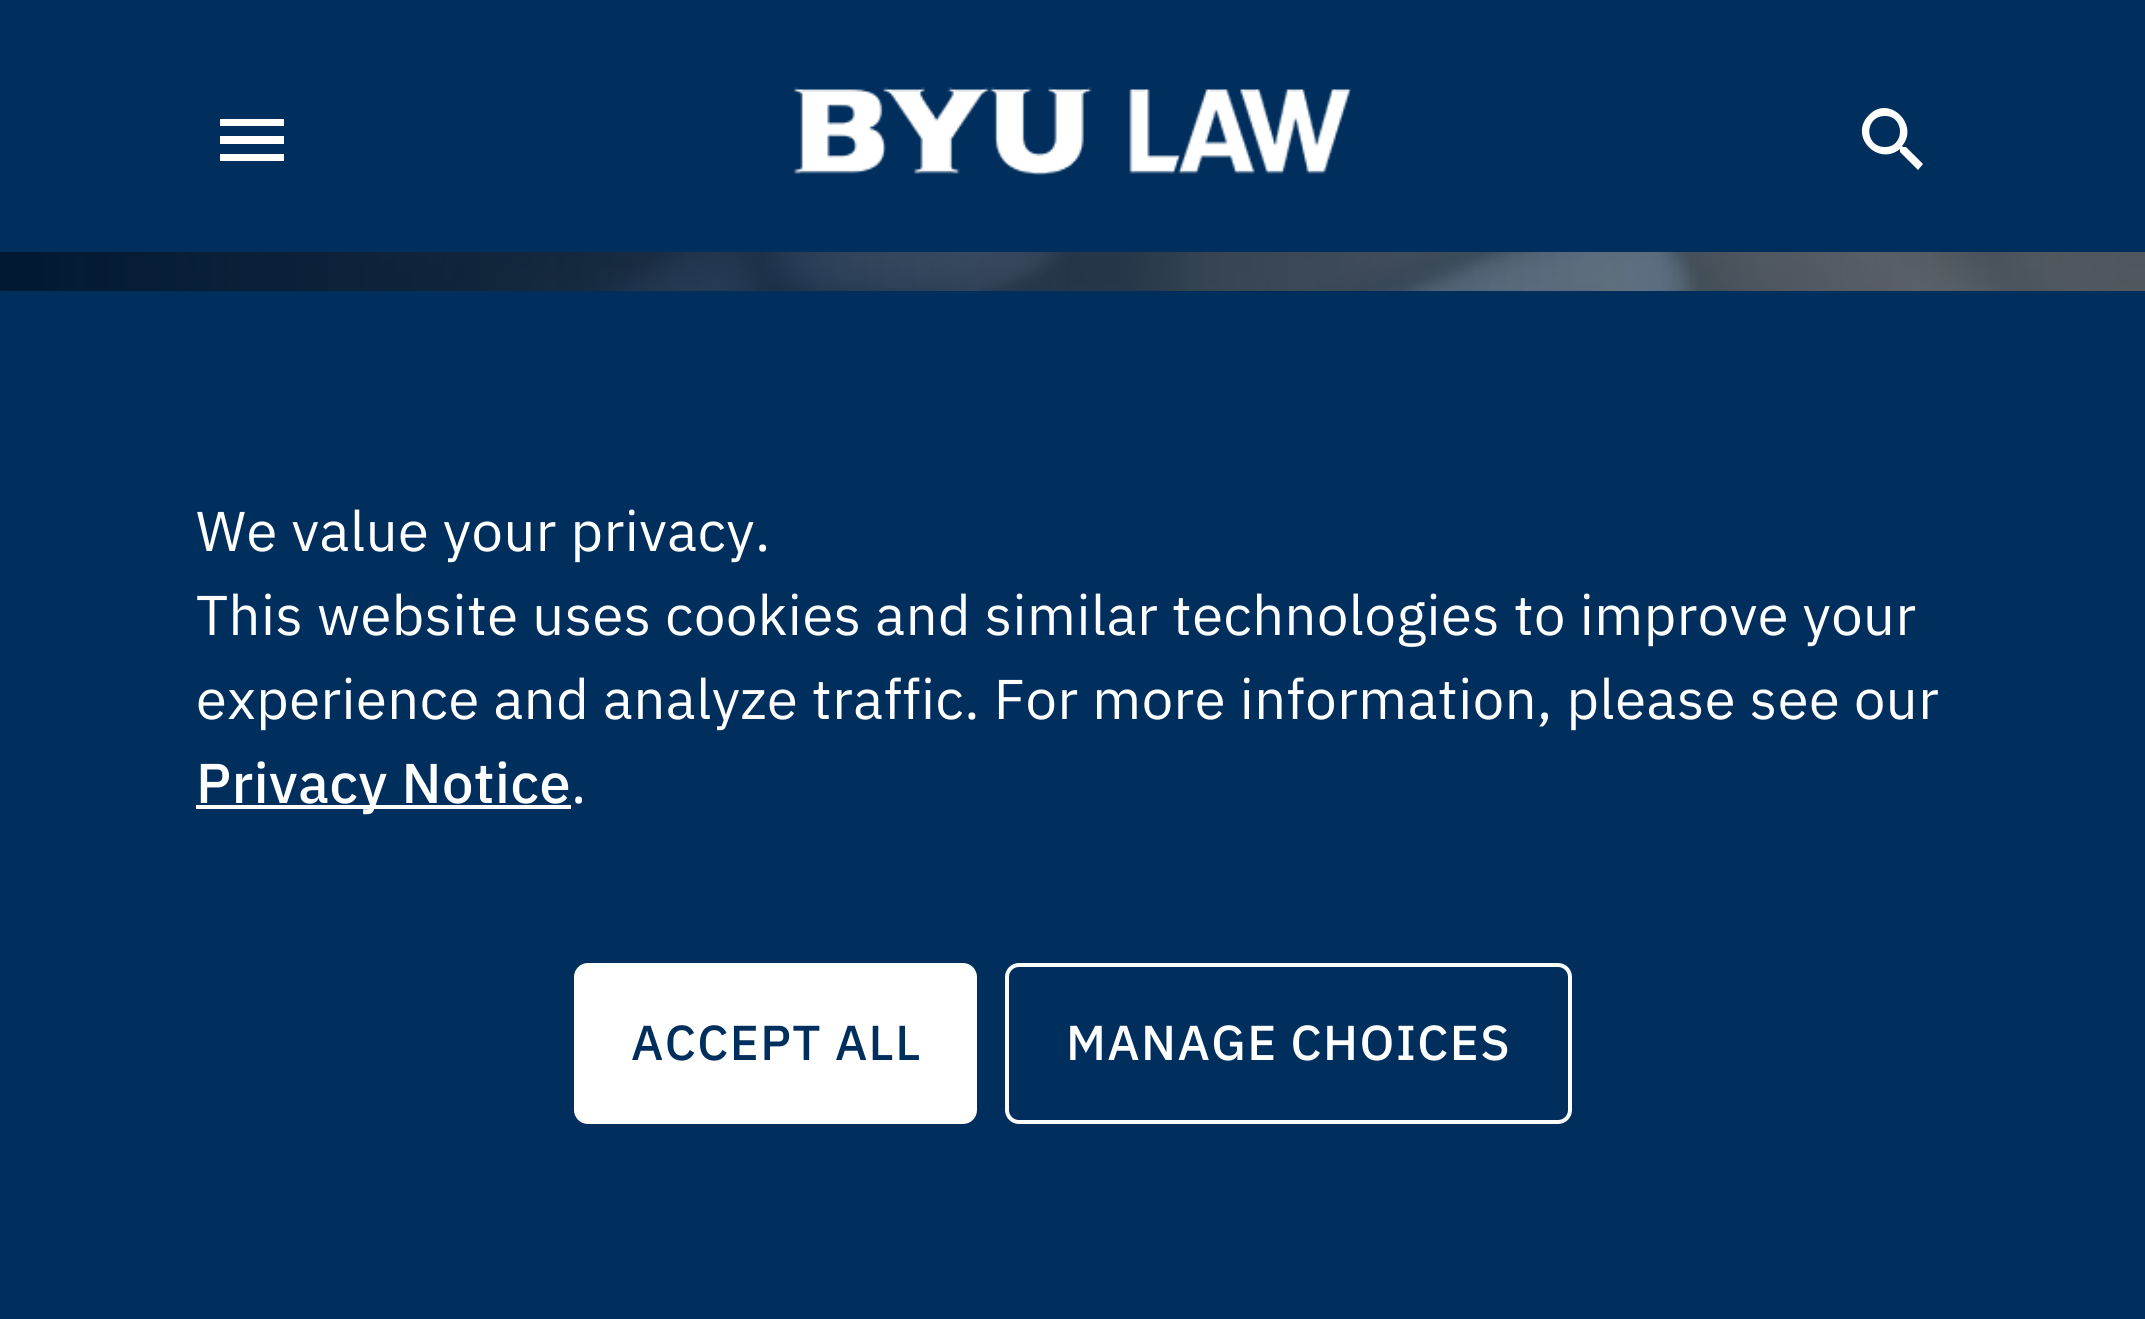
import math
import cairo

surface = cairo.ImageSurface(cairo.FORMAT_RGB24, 2145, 1319)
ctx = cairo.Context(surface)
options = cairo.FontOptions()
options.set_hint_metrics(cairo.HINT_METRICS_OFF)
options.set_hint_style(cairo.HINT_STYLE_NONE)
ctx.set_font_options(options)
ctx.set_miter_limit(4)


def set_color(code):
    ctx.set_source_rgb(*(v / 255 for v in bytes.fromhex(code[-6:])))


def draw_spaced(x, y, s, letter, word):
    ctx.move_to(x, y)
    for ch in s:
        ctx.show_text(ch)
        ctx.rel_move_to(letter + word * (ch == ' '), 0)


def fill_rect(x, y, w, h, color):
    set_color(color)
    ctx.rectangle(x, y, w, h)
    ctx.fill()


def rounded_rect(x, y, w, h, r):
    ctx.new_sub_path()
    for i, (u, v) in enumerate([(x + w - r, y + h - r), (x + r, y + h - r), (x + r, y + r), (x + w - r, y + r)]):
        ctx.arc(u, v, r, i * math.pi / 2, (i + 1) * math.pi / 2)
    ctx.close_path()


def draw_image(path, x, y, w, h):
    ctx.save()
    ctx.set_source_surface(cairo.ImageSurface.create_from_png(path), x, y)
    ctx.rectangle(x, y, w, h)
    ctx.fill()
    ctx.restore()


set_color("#ffffff")
ctx.paint()
fill_rect(0, 0, 2145, 252, "#002e5d")
set_color("#ffffff")
ctx.new_path()
ctx.move_to(220, 161)
ctx.line_to(284, 161)
ctx.line_to(284, 154)
ctx.line_to(220, 154)
ctx.close_path()
ctx.move_to(220, 144)
ctx.line_to(284, 144)
ctx.line_to(284, 136)
ctx.line_to(220, 136)
ctx.close_path()
ctx.move_to(220, 119)
ctx.line_to(220, 126)
ctx.line_to(284, 126)
ctx.line_to(284, 119)
ctx.close_path()
ctx.fill()
draw_image("assets/img1.png", 794, 87, 557, 88)
ctx.new_path()
ctx.move_to(1906, 147)
ctx.line_to(1903, 147)
ctx.line_to(1902, 146)
ctx.curve_to(1920, 125, 1889, 94, 1869, 115)
ctx.curve_to(1848, 136, 1878, 167, 1900, 149)
ctx.line_to(1900, 152)
ctx.line_to(1918, 170)
ctx.line_to(1923, 164)
ctx.close_path()
ctx.move_to(1885, 147)
ctx.curve_to(1864, 147, 1864, 116, 1885, 116)
ctx.curve_to(1905, 116, 1905, 147, 1885, 147)
ctx.fill()
draw_image("assets/img2.png", 25, 252, 2120, 39)
gradient = cairo.LinearGradient(0, 1092, 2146, 1092)
gradient.add_color_stop_rgba(0, 0, 0.094, 0.196, 1)
gradient.add_color_stop_rgba(1, 0, 0.094, 0.196, 0.5)
ctx.set_source(gradient)
ctx.rectangle(0, 252, 2145, 39)
ctx.fill()
fill_rect(0, 291, 2145, 1028, "#002e5d")
ctx.select_font_face("IBM Plex Sans")
ctx.set_font_size(56)
set_color("#ffffff")
draw_spaced(196, 551, "We value your privacy.", 0.53, 0)
draw_spaced(196, 635, "This website uses cookies and similar technologies to improve your", 0.53, 0)
draw_spaced(196, 719, "experience and analyze traffic. For more information, please see our", 0.53, 0)
fill_rect(196, 805, 375, 4, "#ffffff")
ctx.select_font_face("IBM Plex Sans Medium")
draw_spaced(196, 803, "Privacy Notice", 0.53, 0)
ctx.select_font_face("IBM Plex Sans")
draw_spaced(571, 803, ".", 0.53, 0)
rounded_rect(574, 963, 403, 161, 14)
ctx.fill()
ctx.select_font_face("IBM Plex Sans Medium")
ctx.set_font_size(49)
set_color("#002e5d")
draw_spaced(631, 1060, "ACCEPT ALL", 1.4, 0)
rounded_rect(1007, 965, 563, 157, 12)
set_color("#ffffff")
ctx.set_line_width(4)
ctx.stroke()
draw_spaced(1066, 1060, "MANAGE CHOICES", 1.4, 0)
surface.write_to_png("output.png")
